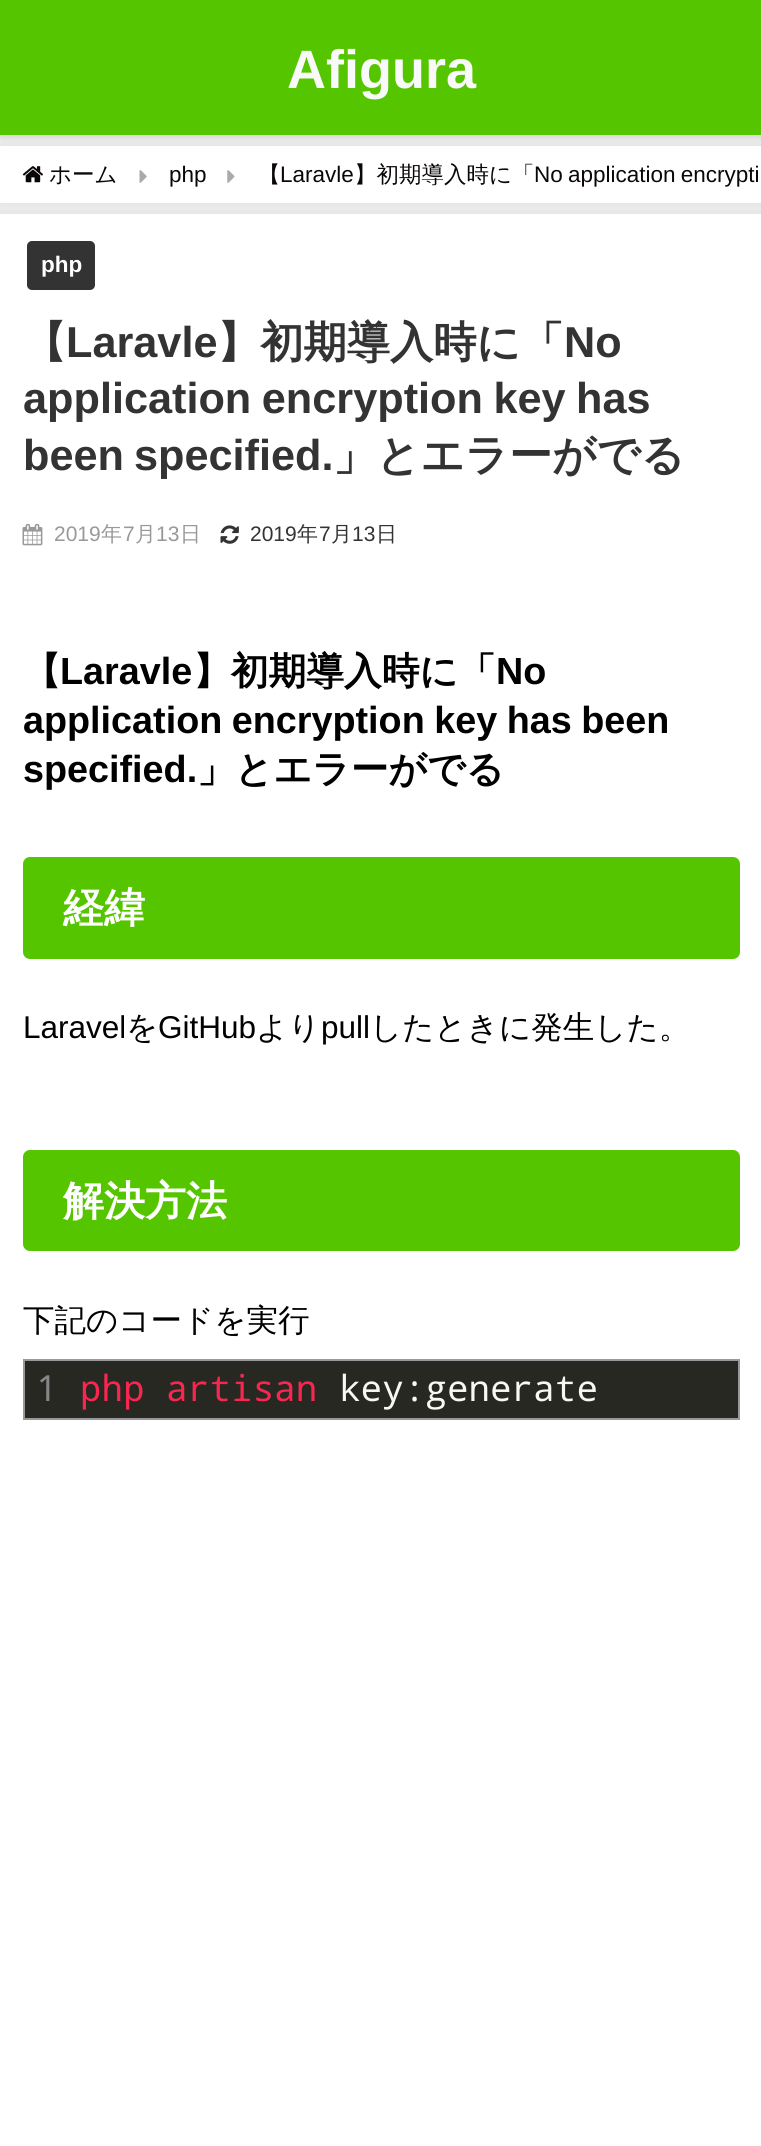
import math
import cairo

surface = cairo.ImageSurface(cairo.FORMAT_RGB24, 761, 2146)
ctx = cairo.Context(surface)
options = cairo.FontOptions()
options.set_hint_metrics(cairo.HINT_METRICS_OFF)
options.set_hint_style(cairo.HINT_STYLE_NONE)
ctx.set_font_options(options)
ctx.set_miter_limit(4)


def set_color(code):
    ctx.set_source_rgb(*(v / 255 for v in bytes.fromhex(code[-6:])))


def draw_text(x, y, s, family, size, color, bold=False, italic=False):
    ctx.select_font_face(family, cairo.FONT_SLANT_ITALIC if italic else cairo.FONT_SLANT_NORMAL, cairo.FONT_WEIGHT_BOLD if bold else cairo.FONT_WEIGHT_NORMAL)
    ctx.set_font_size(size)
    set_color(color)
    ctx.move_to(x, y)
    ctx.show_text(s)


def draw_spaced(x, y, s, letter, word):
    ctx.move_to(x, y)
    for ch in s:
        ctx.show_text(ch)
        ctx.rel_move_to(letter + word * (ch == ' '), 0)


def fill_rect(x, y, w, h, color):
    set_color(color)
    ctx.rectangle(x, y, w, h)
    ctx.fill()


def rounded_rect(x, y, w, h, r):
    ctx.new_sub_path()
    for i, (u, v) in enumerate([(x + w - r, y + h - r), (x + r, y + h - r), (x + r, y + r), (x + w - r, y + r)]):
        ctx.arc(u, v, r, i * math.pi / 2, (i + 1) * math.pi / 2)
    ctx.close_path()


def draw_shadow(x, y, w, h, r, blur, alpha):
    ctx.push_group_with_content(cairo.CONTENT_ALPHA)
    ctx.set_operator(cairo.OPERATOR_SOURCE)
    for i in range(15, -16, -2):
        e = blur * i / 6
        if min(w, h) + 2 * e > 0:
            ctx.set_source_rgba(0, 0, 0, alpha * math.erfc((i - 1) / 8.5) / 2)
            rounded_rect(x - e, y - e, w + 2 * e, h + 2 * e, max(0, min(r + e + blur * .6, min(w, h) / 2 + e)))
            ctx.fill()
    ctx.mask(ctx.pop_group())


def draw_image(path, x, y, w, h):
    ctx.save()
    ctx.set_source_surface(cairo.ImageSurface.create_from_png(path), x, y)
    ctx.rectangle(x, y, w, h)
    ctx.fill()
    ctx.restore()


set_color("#efefef")
ctx.paint()
set_color("#969696")
draw_shadow(0, 146, 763, 57, 0, 5.5, 0.2)
fill_rect(0, 146, 761, 57, "#ffffff")
set_color("#000000")
draw_shadow(0, 0, 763, 135, 0, 4.5, 0.2)
fill_rect(0, 0, 761, 135, "#55c500")
draw_text(287, 88, "Afigura", "Liberation Sans", 54, "#f9f9f9", bold=True)
draw_image("assets/img1.png", 22, 166, 21, 17)
draw_text(49, 182, "ホーム", "WenQuanYi Zen Hei Medium", 22.5, "#0c0707")
draw_image("assets/img2.png", 139, 170, 8, 13)
draw_text(169, 182, "php", "Liberation Sans", 22.5, "#0c0707")
draw_image("assets/img3.png", 227, 170, 8, 13)
draw_text(258, 182, "【", "WenQuanYi Zen Hei Medium", 22.5, "#0c0707")
draw_text(280, 182, "Laravle", "Liberation Sans", 22.5, "#0c0707")
draw_text(354, 182, "】初期導入時に「", "WenQuanYi Zen Hei Medium", 22.5, "#0c0707")
ctx.select_font_face("Liberation Sans")
draw_spaced(534, 182, "No application encrypti", 0, -1)
set_color("#969696")
draw_shadow(0, 214, 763, 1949, 0, 5.5, 0.2)
fill_rect(0, 214, 761, 1932, "#ffffff")
set_color("#333333")
rounded_rect(27, 241, 68, 49, 5)
ctx.fill()
draw_text(41, 272, "php", "Liberation Sans", 22.5, "#ffffff", bold=True)
draw_text(23, 357, "【", "WenQuanYi Zen Hei", 43.25, "#333333", bold=True)
draw_text(66, 357, "Laravle", "Liberation Sans", 43.25, "#333333", bold=True)
draw_text(217, 357, "】初期導入時に「", "WenQuanYi Zen Hei", 43.25, "#333333", bold=True)
draw_text(564, 357, "No", "Liberation Sans", 43.25, "#333333", bold=True)
draw_spaced(23, 413, "application encryption key has", 0, -1.5)
draw_spaced(23, 470, "been specified.", 0, -2)
draw_text(333, 470, "」とエラーがでる", "WenQuanYi Zen Hei", 43.25, "#333333", bold=True)
draw_image("assets/img4.png", 22, 523, 21, 23)
draw_text(54, 541, "2019", "Liberation Sans", 21, "#999999")
draw_text(101, 541, "年", "WenQuanYi Zen Hei Medium", 21, "#999999")
draw_text(123, 541, "7", "Liberation Sans", 21, "#999999")
draw_text(135, 541, "月", "WenQuanYi Zen Hei Medium", 21, "#999999")
draw_text(156, 541, "13", "Liberation Sans", 21, "#999999")
draw_text(180, 541, "日", "WenQuanYi Zen Hei Medium", 21, "#999999")
draw_image("assets/img5.png", 220, 525, 19, 19)
draw_text(250, 541, "2019", "Liberation Sans", 21, "#333333")
draw_text(297, 541, "年", "WenQuanYi Zen Hei Medium", 21, "#333333")
draw_text(319, 541, "7", "Liberation Sans", 21, "#333333")
draw_text(331, 541, "月", "WenQuanYi Zen Hei Medium", 21, "#333333")
draw_text(352, 541, "13", "Liberation Sans", 21, "#333333")
draw_text(376, 541, "日", "WenQuanYi Zen Hei Medium", 21, "#333333")
draw_text(23, 684, "【", "WenQuanYi Zen Hei", 37.75, "#000000", bold=True)
draw_text(60, 684, "Laravle", "Liberation Sans", 37.75, "#000000", bold=True)
draw_text(193, 684, "】初期導入時に「", "WenQuanYi Zen Hei", 37.75, "#000000", bold=True)
draw_text(496, 684, "No", "Liberation Sans", 37.75, "#000000", bold=True)
draw_spaced(23, 733, "application encryption key has been", 0, -1)
draw_text(23, 782, "specified.", "Liberation Sans", 37.75, "#000000", bold=True)
draw_text(197, 782, "」とエラーがでる", "WenQuanYi Zen Hei", 37.75, "#000000", bold=True)
set_color("#55c500")
rounded_rect(23, 857, 717, 102, 7)
ctx.fill()
draw_text(63, 922, "経緯", "WenQuanYi Zen Hei", 41, "#ffffff", bold=True)
draw_text(23, 1038, "Laravel", "Liberation Sans", 31.5, "#000000")
draw_text(126, 1038, "を", "WenQuanYi Zen Hei Medium", 31.5, "#000000")
draw_text(158, 1038, "GitHub", "Liberation Sans", 31.5, "#000000")
draw_text(256, 1038, "より", "WenQuanYi Zen Hei Medium", 31.5, "#000000")
draw_text(321, 1038, "pull", "Liberation Sans", 31.5, "#000000")
draw_text(370, 1038, "したときに発生した。", "WenQuanYi Zen Hei Medium", 31.5, "#000000")
set_color("#55c500")
rounded_rect(23, 1150, 717, 101, 7)
ctx.fill()
draw_text(63, 1215, "解決方法", "WenQuanYi Zen Hei", 41, "#ffffff", bold=True)
draw_text(23, 1331, "下記のコードを実行", "WenQuanYi Zen Hei Medium", 31.5, "#000000")
set_color("#272822")
ctx.rectangle(24, 1360, 715, 59)
ctx.fill_preserve()
set_color("#999999")
ctx.stroke()
draw_text(36, 1401, "1", "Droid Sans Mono", 36, "#868686")
draw_text(80, 1401, "php artisan", "Droid Sans Mono", 36, "#f92650")
draw_text(339, 1401, "key:generate", "Droid Sans Mono", 36, "#f8f8f2")
surface.write_to_png("output.png")
